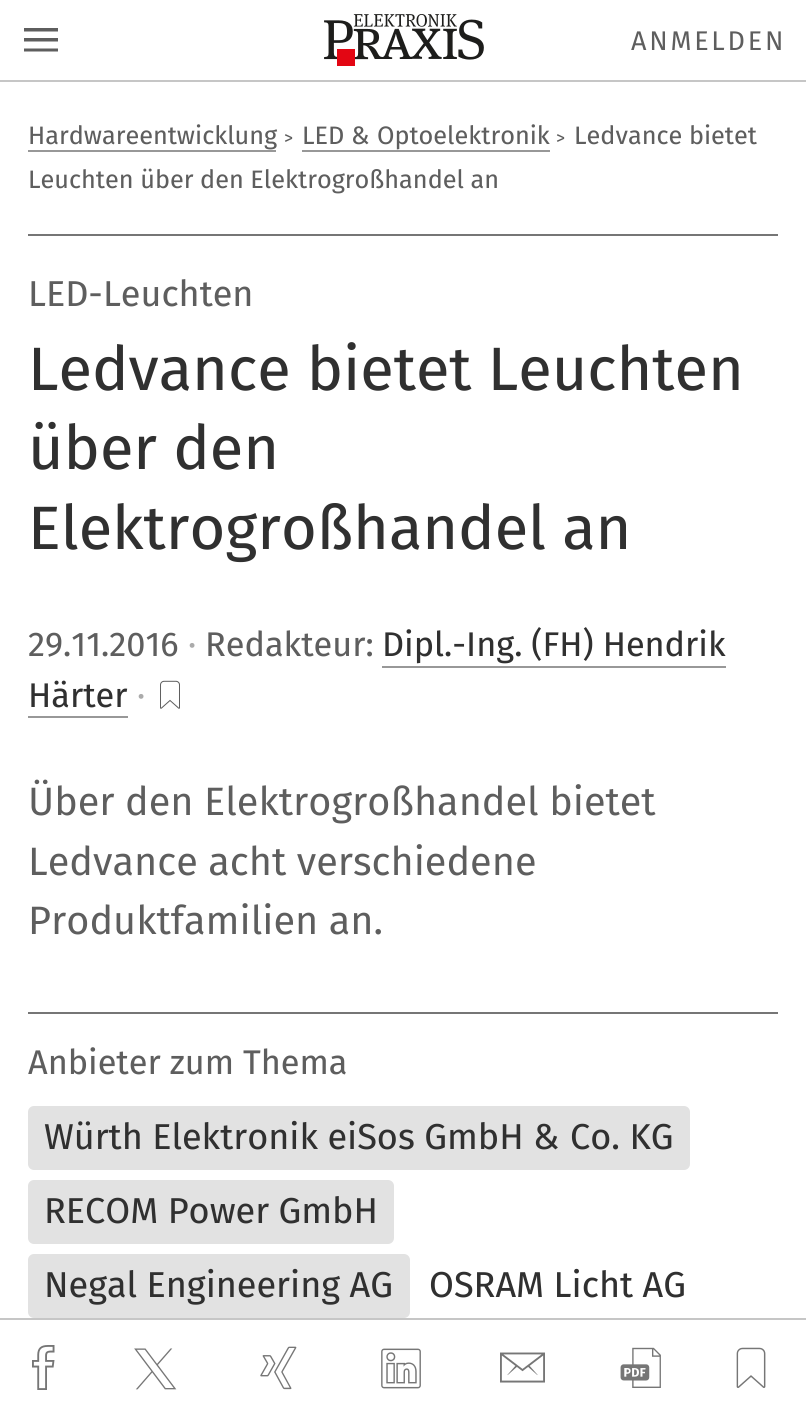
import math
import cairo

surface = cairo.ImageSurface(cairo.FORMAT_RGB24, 806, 1418)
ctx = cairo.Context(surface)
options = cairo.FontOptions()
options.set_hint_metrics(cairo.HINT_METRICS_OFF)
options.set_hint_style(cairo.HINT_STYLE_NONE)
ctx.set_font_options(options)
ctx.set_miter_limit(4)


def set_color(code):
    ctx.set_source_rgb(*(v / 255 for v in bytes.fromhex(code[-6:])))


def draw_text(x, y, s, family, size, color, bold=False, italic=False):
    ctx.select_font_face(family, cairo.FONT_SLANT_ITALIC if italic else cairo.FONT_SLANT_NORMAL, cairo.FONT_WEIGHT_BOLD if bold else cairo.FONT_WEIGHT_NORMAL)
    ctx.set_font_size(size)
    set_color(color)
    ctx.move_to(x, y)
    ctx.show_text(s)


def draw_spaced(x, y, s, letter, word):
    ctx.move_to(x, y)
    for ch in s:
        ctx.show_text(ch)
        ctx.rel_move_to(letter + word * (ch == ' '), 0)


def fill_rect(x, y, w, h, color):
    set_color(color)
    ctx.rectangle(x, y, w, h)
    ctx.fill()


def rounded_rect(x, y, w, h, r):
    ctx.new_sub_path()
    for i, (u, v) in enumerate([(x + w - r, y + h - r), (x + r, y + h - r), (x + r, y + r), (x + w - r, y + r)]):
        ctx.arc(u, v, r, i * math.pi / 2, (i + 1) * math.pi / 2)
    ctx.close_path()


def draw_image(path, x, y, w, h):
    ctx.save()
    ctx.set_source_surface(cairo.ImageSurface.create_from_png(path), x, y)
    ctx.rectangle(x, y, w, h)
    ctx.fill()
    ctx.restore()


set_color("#ffffff")
ctx.paint()
fill_rect(0, 80, 806, 2, "#c6c6c6")
set_color("#5e5e5e")
ctx.new_path()
ctx.move_to(24, 41.5)
ctx.line_to(24, 38)
ctx.line_to(58, 38)
ctx.line_to(58, 41.5)
ctx.close_path()
ctx.move_to(24, 31.5)
ctx.line_to(24, 28)
ctx.line_to(58, 28)
ctx.line_to(58, 31.5)
ctx.close_path()
ctx.move_to(24, 51.5)
ctx.line_to(24, 48.5)
ctx.line_to(58, 48.5)
ctx.line_to(58, 51.5)
ctx.close_path()
ctx.fill()
draw_image("assets/img1.png", 324, 14, 160, 52)
ctx.select_font_face("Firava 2")
ctx.set_font_size(27)
draw_spaced(631, 50, "ANMELDEN", 2.75, 0)
fill_rect(28, 234, 750, 2, "#767676")
draw_text(28, 144, "Hardwareentwicklung", "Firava", 25.25, "#5e5e5e")
fill_rect(28, 150, 248, 2, "#989898")
draw_text(284, 144, ">", "Firava", 18, "#5e5e5e")
draw_text(302, 144, "LED & Optoelektronik", "Firava", 25.25, "#5e5e5e")
fill_rect(302, 150, 248, 2, "#989898")
draw_text(556, 144, ">", "Firava", 18, "#5e5e5e")
draw_text(574, 144, "Ledvance bietet", "Firava", 25.25, "#5e5e5e")
draw_text(28, 188, "Leuchten über den Elektrogroßhandel an", "Firava", 25.25, "#5e5e5e")
draw_text(28, 306, "LED-Leuchten", "Firava", 36, "#5e5e5e")
draw_text(28, 390, "Ledvance bietet Leuchten", "Firava", 61.25, "#303030")
draw_text(28, 469, "über den", "Firava", 61.25, "#303030")
draw_text(28, 549, "Elektrogroßhandel an", "Firava", 61.25, "#303030")
draw_text(205, 656, "Redakteur:", "Firava", 34.25, "#5e5e5e")
draw_text(382, 656, "Dipl.-Ing. (FH) Hendrik", "Firava", 34.25, "#303030")
fill_rect(382, 666, 344, 2, "#989898")
draw_text(28, 707, "Härter", "Firava", 34.25, "#303030")
fill_rect(28, 716, 100, 2, "#989898")
draw_text(137, 707, "·", "Firava", 34.25, "#ababab")
draw_text(28, 656, "29.11.2016", "Firava", 34.25, "#5e5e5e")
draw_text(188, 656, "·", "Firava", 34.25, "#ababab")
draw_image("assets/img2.png", 160, 680, 20, 29)
draw_text(28, 815, "Über den Elektrogroßhandel bietet", "Firava 2", 39.6, "#5e5e5e")
draw_text(28, 875, "Ledvance acht verschiedene", "Firava 2", 39.6, "#5e5e5e")
draw_text(28, 934, "Produktfamilien an.", "Firava 2", 39.6, "#5e5e5e")
fill_rect(28, 1012, 750, 2, "#767676")
draw_text(28, 1074, "Anbieter zum Thema", "Firava", 34.25, "#5e5e5e")
set_color("#e2e2e2")
rounded_rect(28, 1106, 662, 64, 6)
ctx.fill()
draw_text(44, 1149, "Würth Elektronik eiSos GmbH & Co. KG", "Firava", 36, "#303030")
set_color("#e2e2e2")
rounded_rect(28, 1180, 366, 64, 6)
ctx.fill()
draw_text(44, 1223, "RECOM Power GmbH", "Firava", 36, "#303030")
set_color("#e2e2e2")
rounded_rect(28, 1254, 382, 64, 6)
ctx.fill()
draw_text(44, 1297, "Negal Engineering AG", "Firava", 36, "#303030")
draw_text(429, 1297, "OSRAM Licht AG", "Firava", 36, "#303030")
fill_rect(0, 1318, 806, 2, "#c6c6c6")
draw_image("assets/img3.png", 32, 1345, 23, 45)
draw_image("assets/img4.png", 134, 1348, 43, 42)
draw_image("assets/img5.png", 260, 1346, 37, 44)
draw_image("assets/img6.png", 381, 1348, 40, 41)
draw_image("assets/img7.png", 500, 1352, 45, 31)
draw_image("assets/img8.png", 620, 1347, 41, 41)
draw_image("assets/img9.png", 736, 1347, 30, 41)
surface.write_to_png("output.png")
